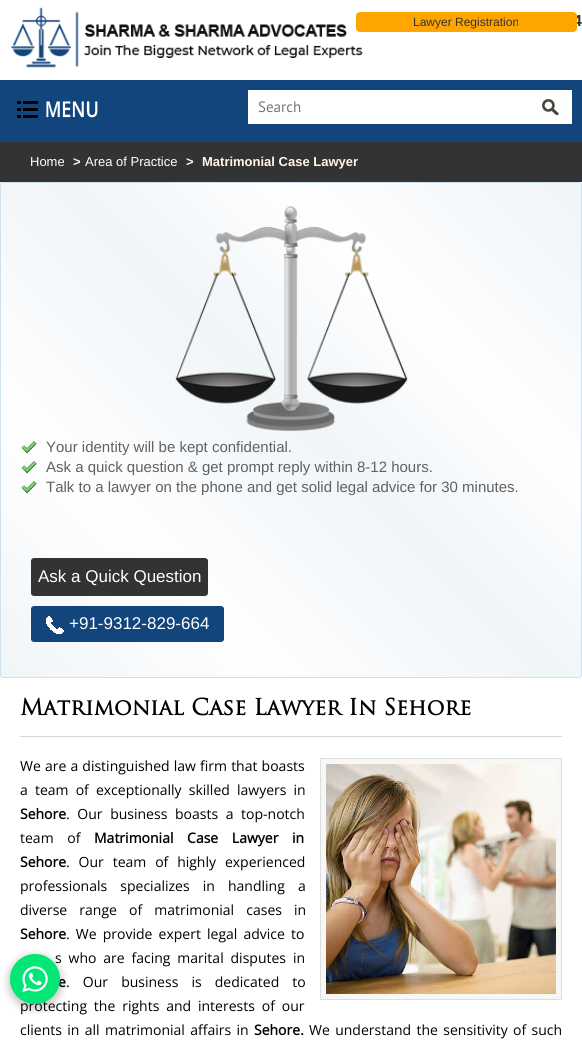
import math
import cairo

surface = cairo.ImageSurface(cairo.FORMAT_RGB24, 582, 1054)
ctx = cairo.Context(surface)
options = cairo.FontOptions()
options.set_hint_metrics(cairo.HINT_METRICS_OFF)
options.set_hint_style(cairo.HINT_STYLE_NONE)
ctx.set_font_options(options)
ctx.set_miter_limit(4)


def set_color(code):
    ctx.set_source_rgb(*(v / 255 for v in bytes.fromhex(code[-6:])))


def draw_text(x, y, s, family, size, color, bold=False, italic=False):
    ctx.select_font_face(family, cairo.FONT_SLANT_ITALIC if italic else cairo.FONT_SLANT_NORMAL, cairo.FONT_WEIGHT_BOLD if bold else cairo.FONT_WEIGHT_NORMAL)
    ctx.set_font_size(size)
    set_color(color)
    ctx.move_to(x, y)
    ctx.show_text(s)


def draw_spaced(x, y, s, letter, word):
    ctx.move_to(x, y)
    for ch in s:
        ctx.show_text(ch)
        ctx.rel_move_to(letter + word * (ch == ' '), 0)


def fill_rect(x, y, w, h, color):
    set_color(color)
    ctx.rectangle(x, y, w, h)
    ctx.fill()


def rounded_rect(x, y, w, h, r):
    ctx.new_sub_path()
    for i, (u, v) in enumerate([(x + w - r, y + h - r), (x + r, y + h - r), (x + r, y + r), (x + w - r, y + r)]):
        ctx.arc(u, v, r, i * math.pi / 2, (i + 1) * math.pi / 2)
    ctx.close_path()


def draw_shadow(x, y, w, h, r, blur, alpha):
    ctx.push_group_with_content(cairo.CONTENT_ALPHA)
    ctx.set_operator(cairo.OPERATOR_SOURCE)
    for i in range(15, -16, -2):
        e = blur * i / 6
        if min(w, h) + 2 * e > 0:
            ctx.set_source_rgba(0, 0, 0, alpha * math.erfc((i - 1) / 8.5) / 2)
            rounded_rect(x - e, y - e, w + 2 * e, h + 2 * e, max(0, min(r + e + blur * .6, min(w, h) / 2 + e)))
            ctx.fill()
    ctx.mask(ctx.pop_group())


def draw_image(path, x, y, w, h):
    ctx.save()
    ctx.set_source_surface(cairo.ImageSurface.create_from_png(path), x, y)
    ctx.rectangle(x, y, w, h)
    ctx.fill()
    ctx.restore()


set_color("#ffffff")
ctx.paint()
draw_image("assets/img1.png", 11, 7, 352, 61)
draw_text(573, 26, "4", "Liberation Sans", 16, "#333333", bold=True)
set_color("#ffa500")
rounded_rect(356, 12, 221, 20, 4)
ctx.fill()
draw_text(413, 26, "Lawyer Registration", "Liberation Sans", 12, "#333333")
fill_rect(0, 80, 582, 62, "#11457c")
draw_image("assets/img2.png", 17, 101, 81, 17)
fill_rect(248, 90, 281, 34, "#ffffff")
draw_text(258, 112, "Search", "PT Sans", 15, "#757575")
draw_image("assets/img3.png", 529, 90, 43, 34)
fill_rect(0, 142, 582, 40, "#333333")
draw_text(30, 166, "Home", "Liberation Sans", 13, "#ffffff")
draw_text(73, 166, ">", "Liberation Sans", 13, "#fff6ec", bold=True)
draw_text(85, 166, "Area of Practice", "Liberation Sans", 13, "#ffffff")
draw_text(186, 166, ">", "Liberation Sans", 13, "#fff6ec", bold=True)
draw_text(202, 166, "Matrimonial Case Lawyer", "Liberation Sans", 13, "#fff6ec", bold=True)
gradient = cairo.LinearGradient(23, 699, 560, 162)
gradient.add_color_stop_rgba(0, 0.941, 0.961, 0.973, 1)
gradient.add_color_stop_rgba(0.25, 0.996, 0.996, 1, 1)
gradient.add_color_stop_rgba(0.52, 0.941, 0.961, 0.973, 1)
gradient.add_color_stop_rgba(0.72, 0.996, 0.996, 1, 1)
gradient.add_color_stop_rgba(0.98, 0.941, 0.961, 0.973, 1)
ctx.set_source(gradient)
ctx.rectangle(1, 183, 580, 494)
ctx.fill()
rounded_rect(0.5, 182.5, 581, 495, 2.5)
set_color("#d1e0ed")
ctx.set_line_width(1)
ctx.stroke()
draw_image("assets/img4.png", 175, 206, 233, 225)
draw_image("assets/img5.png", 21, 441, 16, 13)
draw_text(46, 452, "Your identity will be kept confidential.", "Liberation Sans", 15, "#606160")
draw_image("assets/img6.png", 21, 461, 16, 13)
draw_text(46, 472, "Ask a quick question & get prompt reply within 8-12 hours.", "Liberation Sans", 15, "#606160")
draw_image("assets/img7.png", 21, 481, 16, 13)
draw_text(46, 492, "Talk to a lawyer on the phone and get solid legal advice for 30 minutes.", "Liberation Sans", 15, "#606160")
set_color("#333333")
rounded_rect(31, 558, 177, 38, 3)
ctx.fill()
draw_text(38, 582, "Ask a Quick Question", "Liberation Sans", 17, "#ffffff")
set_color("#11457c")
rounded_rect(31, 606, 193, 36, 3)
ctx.fill()
draw_image("assets/img8.png", 46, 616, 18, 18)
draw_text(69, 629, "+91-9312-829-664", "Liberation Sans", 17, "#ffffff")
fill_rect(20, 736, 542, 1, "#d9d8d6")
draw_text(20, 715, "Matrimonial Case Lawyer In Sehore", "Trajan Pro", 22, "#000000", bold=True)
set_color("#f7f7f6")
ctx.rectangle(320.5, 758.5, 241, 241)
ctx.fill_preserve()
set_color("#dedede")
ctx.stroke()
draw_image("assets/img9.png", 326, 764, 230, 230)
ctx.select_font_face("Open Sans")
ctx.set_font_size(14)
set_color("#000000")
draw_spaced(20, 771, "We are a distinguished law firm that boasts", 0, 0.5)
draw_spaced(20, 795, "a team of exceptionally skilled lawyers in", 0, 3.5)
draw_text(20, 819, "Sehore", "Open Sans", 14, "#000000", bold=True)
ctx.select_font_face("Open Sans")
draw_spaced(66, 819, ". Our business boasts a top-notch", 0, 4)
draw_spaced(20, 843, "team of", 0, 10)
ctx.select_font_face("Open Sans", cairo.FONT_SLANT_NORMAL, cairo.FONT_WEIGHT_BOLD)
draw_spaced(94, 843, "Matrimonial Case Lawyer in", 0, 10)
draw_text(20, 867, "Sehore", "Open Sans", 14, "#000000", bold=True)
ctx.select_font_face("Open Sans")
draw_spaced(66, 867, ". Our team of highly experienced", 0, 5.25)
draw_spaced(20, 891, "professionals specializes in handling a", 0, 9.5)
draw_spaced(20, 915, "diverse range of matrimonial cases in", 0, 8.5)
draw_text(20, 939, "Sehore", "Open Sans", 14, "#000000", bold=True)
ctx.select_font_face("Open Sans")
draw_spaced(66, 939, ". We provide expert legal advice to", 0, 2.5)
draw_spaced(55, 963, "s who are facing marital disputes in", 0, 3.25)
draw_text(58, 987, "e", "Open Sans", 14, "#000000", bold=True)
ctx.select_font_face("Open Sans")
draw_spaced(66, 987, ". Our business is dedicated to", 0, 9.5)
draw_spaced(20, 1011, "protecting the rights and interests of our", 0, 3.25)
draw_spaced(20, 1035, "clients in all matrimonial affairs in", 0, 1.75)
draw_text(254, 1035, "Sehore.", "Open Sans", 14, "#000000", bold=True)
ctx.select_font_face("Open Sans")
draw_spaced(309, 1035, "We understand the sensitivity of such", 0, 1.75)
set_color("#000000")
draw_shadow(10, 957, 50, 50, 25, 5, 0.16)
draw_shadow(10, 957, 50, 50, 25, 5, 0.16)
set_color("#01e675")
ctx.arc(35, 979, 25, 0, 2 * math.pi)
ctx.fill()
draw_image("assets/img10.png", 22, 966, 26, 27)
surface.write_to_png("output.png")
